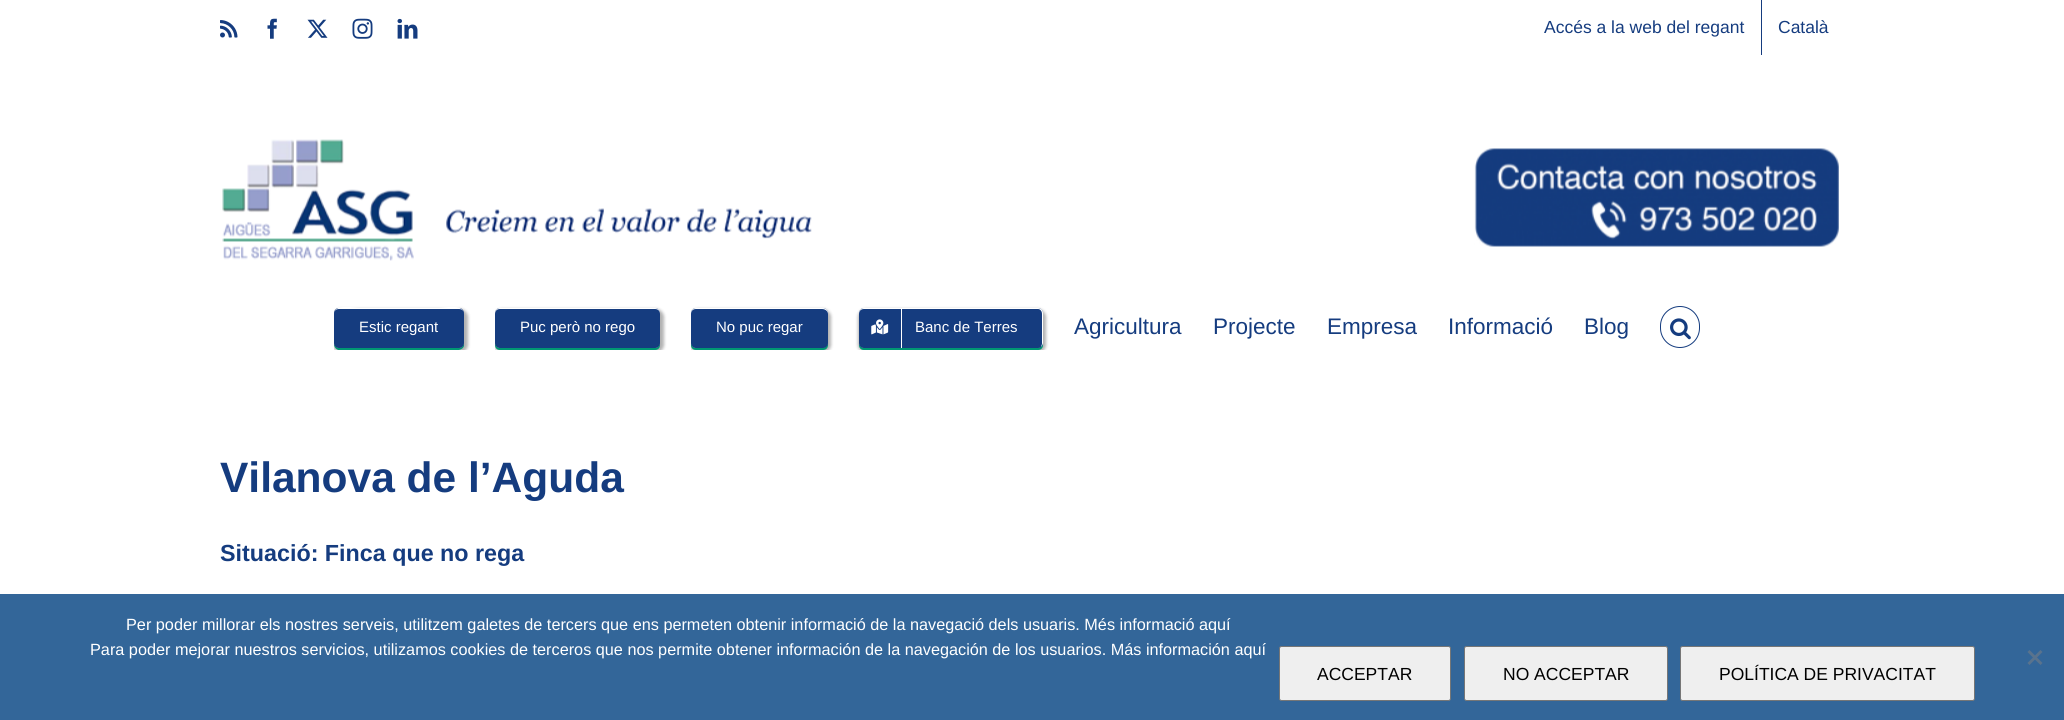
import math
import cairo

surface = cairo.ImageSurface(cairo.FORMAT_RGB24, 2064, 720)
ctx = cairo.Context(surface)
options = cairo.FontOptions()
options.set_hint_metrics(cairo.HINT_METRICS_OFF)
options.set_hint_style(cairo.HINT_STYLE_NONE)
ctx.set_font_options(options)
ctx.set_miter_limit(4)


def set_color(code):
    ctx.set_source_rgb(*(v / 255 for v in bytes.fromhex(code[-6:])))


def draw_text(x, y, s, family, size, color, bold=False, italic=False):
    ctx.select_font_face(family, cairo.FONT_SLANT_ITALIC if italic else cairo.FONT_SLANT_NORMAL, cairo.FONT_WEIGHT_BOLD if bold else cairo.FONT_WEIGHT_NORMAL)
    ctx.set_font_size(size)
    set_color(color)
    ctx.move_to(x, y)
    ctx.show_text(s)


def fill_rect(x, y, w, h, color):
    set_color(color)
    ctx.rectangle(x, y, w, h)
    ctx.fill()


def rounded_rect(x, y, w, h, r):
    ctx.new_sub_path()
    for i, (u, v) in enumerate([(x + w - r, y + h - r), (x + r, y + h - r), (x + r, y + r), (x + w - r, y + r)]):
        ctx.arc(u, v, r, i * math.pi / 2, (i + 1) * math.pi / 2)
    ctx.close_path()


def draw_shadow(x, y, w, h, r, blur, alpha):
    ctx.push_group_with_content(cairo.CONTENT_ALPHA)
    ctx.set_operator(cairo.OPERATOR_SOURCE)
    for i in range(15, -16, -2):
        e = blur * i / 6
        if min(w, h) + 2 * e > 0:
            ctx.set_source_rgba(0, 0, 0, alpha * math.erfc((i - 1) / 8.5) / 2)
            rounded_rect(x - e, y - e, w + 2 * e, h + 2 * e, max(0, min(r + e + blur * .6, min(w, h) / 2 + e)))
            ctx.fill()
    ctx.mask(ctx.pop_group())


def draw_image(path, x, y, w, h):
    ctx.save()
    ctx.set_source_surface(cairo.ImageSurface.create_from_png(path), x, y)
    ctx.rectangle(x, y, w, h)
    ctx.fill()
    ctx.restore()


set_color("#ffffff")
ctx.paint()
draw_image("assets/img1.png", 220, 20, 18, 18)
draw_image("assets/img2.png", 267, 18, 10, 21)
draw_image("assets/img3.png", 307, 19, 21, 19)
draw_image("assets/img4.png", 352, 18, 21, 21)
draw_image("assets/img5.png", 397, 18, 21, 21)
draw_text(1544, 33, "Accés a la web del regant", "Liberation Sans", 17.5, "#153c7f")
fill_rect(1761, 0, 1, 55, "#153c7f")
draw_text(1778, 33, "Català", "Liberation Sans", 17.5, "#153c7f")
draw_image("assets/img6.png", 222, 139, 590, 122)
draw_image("assets/img7.png", 1474, 148, 365, 99)
ctx.save()
ctx.rectangle(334, 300, 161, 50)
ctx.clip()
set_color("#000000")
draw_shadow(333, 309, 135, 44, 8, 1.5, 0.3)
ctx.restore()
ctx.save()
ctx.rectangle(334, 300, 161, 50)
ctx.clip()
set_color("#009773")
ctx.new_path()
ctx.move_to(334, 344)
ctx.curve_to(334, 355, 355, 350, 359, 350)
ctx.line_to(439, 350)
ctx.curve_to(446, 350, 462, 353, 464, 346)
ctx.line_to(464, 313)
ctx.line_to(464, 342)
ctx.curve_to(464, 345, 462, 348, 459, 348)
ctx.line_to(339, 348)
ctx.curve_to(337, 348, 335, 346, 334, 344)
ctx.close_path()
ctx.fill()
ctx.restore()
rounded_rect(334, 308, 130, 40, 5)
ctx.fill()
set_color("#ffffff")
ctx.new_path()
ctx.move_to(339, 309)
ctx.line_to(459, 309)
ctx.curve_to(462, 309, 464, 311, 464, 314)
ctx.curve_to(464, 303, 443, 308, 439, 308)
ctx.line_to(359, 308)
ctx.curve_to(355, 308, 334, 303, 334, 314)
ctx.curve_to(334, 311, 336, 309, 339, 309)
ctx.close_path()
ctx.fill()
draw_text(359, 332, "Estic regant", "Arimo", 15, "#ffffff")
ctx.save()
ctx.rectangle(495, 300, 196, 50)
ctx.clip()
set_color("#000000")
draw_shadow(494, 309, 170, 44, 8, 1.5, 0.3)
ctx.restore()
set_color("#009773")
ctx.new_path()
ctx.move_to(495, 342)
ctx.line_to(495, 345)
ctx.curve_to(495, 348, 497, 350, 500, 350)
ctx.line_to(655, 350)
ctx.curve_to(658, 350, 660, 348, 660, 345)
ctx.line_to(660, 342)
ctx.curve_to(660, 345, 658, 348, 655, 348)
ctx.line_to(500, 348)
ctx.curve_to(497, 348, 495, 345, 495, 342)
ctx.close_path()
ctx.fill()
set_color("#153c7f")
rounded_rect(495, 308, 165, 40, 5)
ctx.fill()
set_color("#ffffff")
ctx.new_path()
ctx.move_to(500, 309)
ctx.line_to(655, 309)
ctx.curve_to(658, 309, 660, 311, 660, 314)
ctx.line_to(660, 313)
ctx.curve_to(660, 310, 658, 308, 655, 308)
ctx.line_to(500, 308)
ctx.curve_to(497, 308, 495, 310, 495, 313)
ctx.line_to(495, 314)
ctx.curve_to(495, 311, 497, 309, 500, 309)
ctx.close_path()
ctx.fill()
draw_text(520, 332, "Puc però no rego", "Arimo", 15, "#ffffff")
ctx.save()
ctx.rectangle(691, 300, 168, 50)
ctx.clip()
set_color("#000000")
draw_shadow(690, 309, 141, 44, 8, 1.5, 0.3)
ctx.restore()
set_color("#009773")
ctx.new_path()
ctx.move_to(691, 313)
ctx.line_to(691, 345)
ctx.curve_to(691, 348, 693, 350, 696, 350)
ctx.line_to(823, 350)
ctx.curve_to(826, 350, 828, 348, 828, 345)
ctx.line_to(828, 315)
ctx.line_to(828, 313)
ctx.line_to(828, 342)
ctx.curve_to(828, 345, 825, 348, 822, 348)
ctx.line_to(696, 348)
ctx.curve_to(693, 348, 691, 345, 691, 342)
ctx.close_path()
ctx.fill()
set_color("#153c7f")
rounded_rect(691, 308, 137, 40, 5)
ctx.fill()
set_color("#ffffff")
ctx.new_path()
ctx.move_to(696, 309)
ctx.line_to(822, 309)
ctx.curve_to(825, 309, 828, 311, 828, 314)
ctx.line_to(828, 313)
ctx.curve_to(828, 310, 826, 308, 823, 308)
ctx.line_to(696, 308)
ctx.curve_to(693, 308, 691, 310, 691, 313)
ctx.line_to(691, 314)
ctx.curve_to(691, 311, 693, 309, 696, 309)
ctx.close_path()
ctx.fill()
draw_text(716, 332, "No puc regar", "Arimo", 15, "#ffffff")
ctx.save()
ctx.rectangle(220, 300, 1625, 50)
ctx.clip()
set_color("#000000")
draw_shadow(858, 309, 188, 44, 8, 1.5, 0.3)
ctx.restore()
set_color("#009773")
ctx.new_path()
ctx.move_to(859, 344)
ctx.line_to(859, 345)
ctx.curve_to(859, 348, 861, 350, 864, 350)
ctx.line_to(1038, 350)
ctx.curve_to(1041, 350, 1043, 348, 1043, 345)
ctx.line_to(1043, 315)
ctx.line_to(1042, 313)
ctx.line_to(1042, 342)
ctx.curve_to(1042, 345, 1040, 348, 1038, 348)
ctx.line_to(864, 348)
ctx.curve_to(862, 348, 860, 346, 859, 344)
ctx.close_path()
ctx.fill()
set_color("#153c7f")
rounded_rect(859, 308, 184, 40, 5)
ctx.fill()
set_color("#ffffff")
ctx.new_path()
ctx.move_to(864, 309)
ctx.line_to(1038, 309)
ctx.curve_to(1040, 309, 1042, 311, 1042, 314)
ctx.line_to(1042, 344)
ctx.line_to(1041, 347)
ctx.curve_to(1042, 346, 1043, 344, 1043, 343)
ctx.line_to(1043, 313)
ctx.curve_to(1043, 310, 1041, 308, 1038, 308)
ctx.line_to(864, 308)
ctx.curve_to(861, 308, 859, 310, 859, 313)
ctx.line_to(859, 314)
ctx.curve_to(859, 311, 861, 309, 864, 309)
ctx.close_path()
ctx.fill()
fill_rect(901, 308, 1, 40, "#ffffff")
draw_image("assets/img8.png", 871, 319, 18, 16)
draw_text(915, 332, "Banc de Terres", "Arimo", 15, "#ffffff")
draw_text(1074, 334, "Agricultura", "Arimo", 22.5, "#153c7f")
draw_text(1213, 334, "Projecte", "Arimo", 22.5, "#153c7f")
draw_text(1327, 334, "Empresa", "Arimo", 22.5, "#153c7f")
draw_text(1448, 334, "Informació", "Arimo", 22.5, "#153c7f")
draw_text(1584, 334, "Blog", "Arimo", 22.5, "#153c7f")
rounded_rect(1660.5, 306.5, 39, 41, 19.5)
ctx.set_line_width(1)
ctx.stroke()
draw_image("assets/img9.png", 1670, 318, 21, 22)
draw_text(220, 492, "Vilanova de l’Aguda", "Liberation Sans", 42.5, "#153c7f", bold=True)
draw_text(220, 561, "Situació: Finca que no rega", "Liberation Sans", 23.3, "#153c7f", bold=True)
fill_rect(0, 594, 2064, 126, "#336699")
draw_text(126, 630, "Per poder millorar els nostres serveis, utilitzem galetes de tercers que ens permeten obtenir informació de la navegació dels usuaris. Més informació aquí", "Liberation Sans", 16.25, "#ffffff")
draw_text(90, 655, "Para poder mejorar nuestros servicios, utilizamos cookies de terceros que nos permite obtener información de la navegación de los usuarios. Más información aquí", "Liberation Sans", 16.25, "#ffffff")
set_color("#5a738d")
ctx.new_path()
ctx.move_to(2040.5, 650)
ctx.line_to(2042.5, 652)
ctx.line_to(2029.5, 665)
ctx.line_to(2027.5, 663)
ctx.close_path()
ctx.fill()
ctx.new_path()
ctx.move_to(2027.5, 652)
ctx.line_to(2029.5, 650)
ctx.line_to(2042.5, 663)
ctx.line_to(2040.5, 665)
ctx.close_path()
ctx.fill()
set_color("#efefef")
rounded_rect(1279.5, 646.5, 171, 54, 2)
ctx.fill_preserve()
set_color("#767676")
ctx.stroke()
draw_text(1317, 680, "ACCEPTAR", "Liberation Sans", 17.5, "#000000")
set_color("#efefef")
rounded_rect(1464.5, 646.5, 203, 54, 2)
ctx.fill_preserve()
set_color("#767676")
ctx.stroke()
draw_text(1503, 680, "NO ACCEPTAR", "Liberation Sans", 17.5, "#000000")
set_color("#efefef")
rounded_rect(1680.5, 646.5, 294, 54, 2)
ctx.fill_preserve()
set_color("#767676")
ctx.stroke()
draw_text(1719, 680, "POLÍTICA DE PRIVACITAT", "Liberation Sans", 17.5, "#000000")
surface.write_to_png("output.png")
